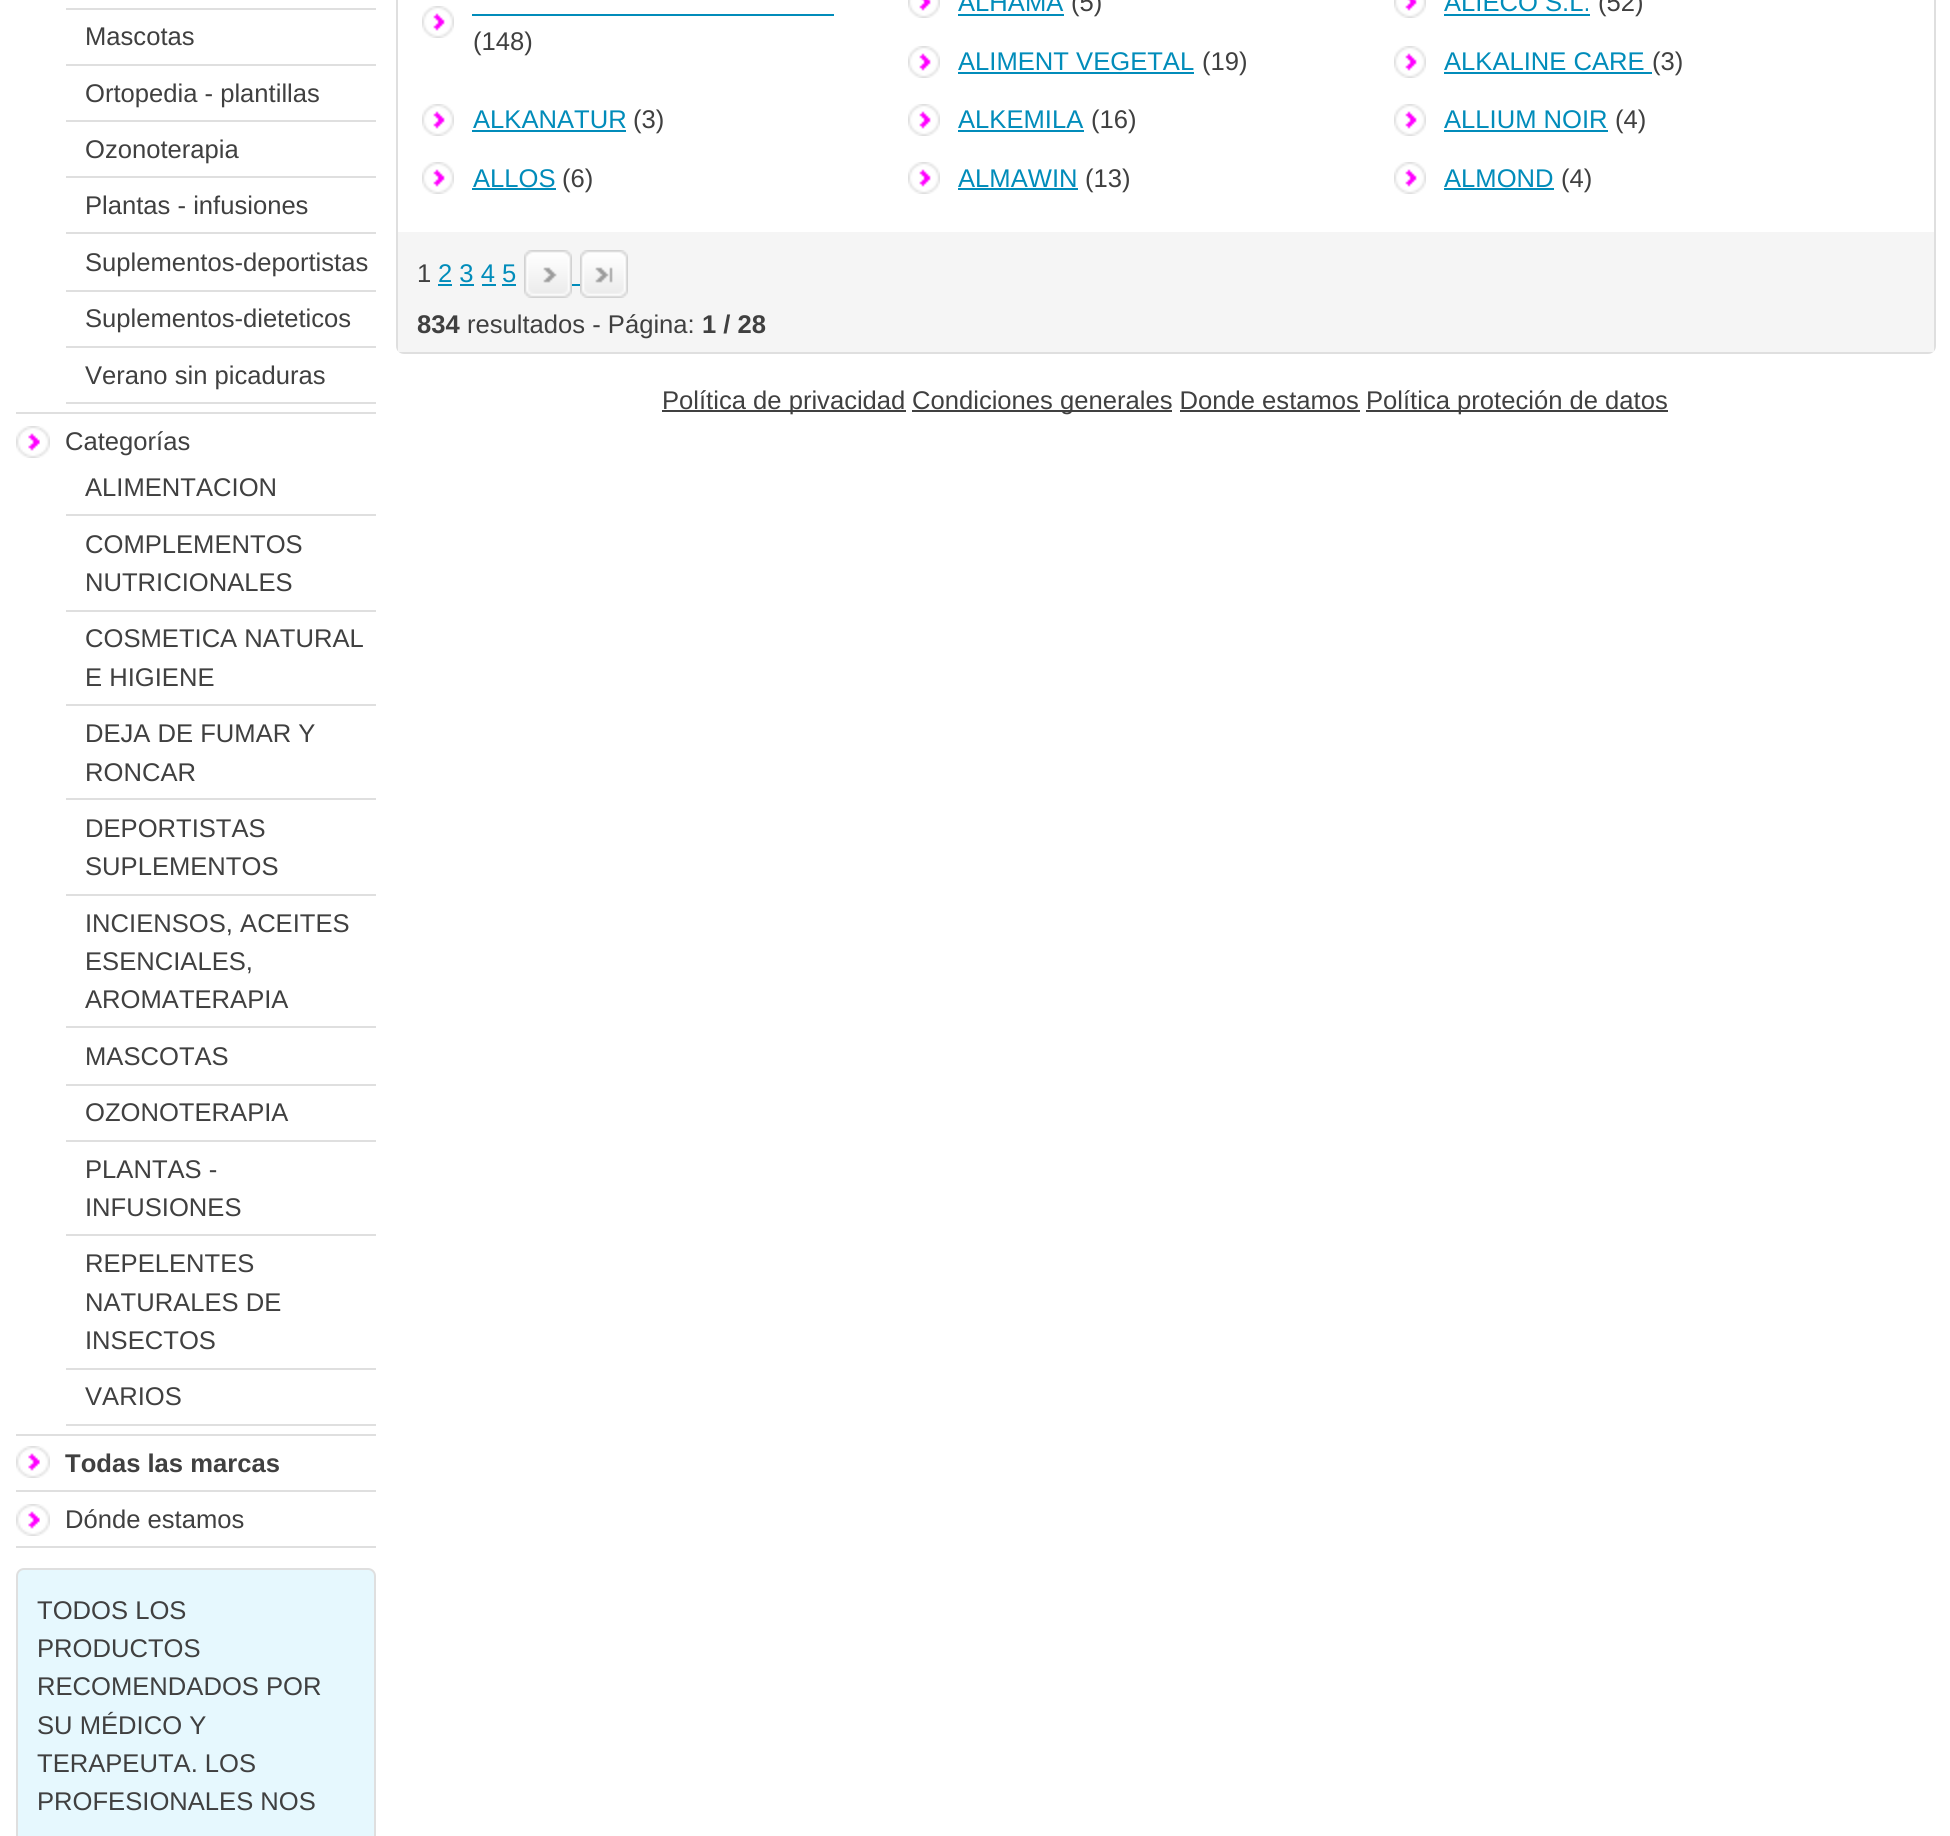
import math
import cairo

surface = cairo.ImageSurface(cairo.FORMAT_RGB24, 1950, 1836)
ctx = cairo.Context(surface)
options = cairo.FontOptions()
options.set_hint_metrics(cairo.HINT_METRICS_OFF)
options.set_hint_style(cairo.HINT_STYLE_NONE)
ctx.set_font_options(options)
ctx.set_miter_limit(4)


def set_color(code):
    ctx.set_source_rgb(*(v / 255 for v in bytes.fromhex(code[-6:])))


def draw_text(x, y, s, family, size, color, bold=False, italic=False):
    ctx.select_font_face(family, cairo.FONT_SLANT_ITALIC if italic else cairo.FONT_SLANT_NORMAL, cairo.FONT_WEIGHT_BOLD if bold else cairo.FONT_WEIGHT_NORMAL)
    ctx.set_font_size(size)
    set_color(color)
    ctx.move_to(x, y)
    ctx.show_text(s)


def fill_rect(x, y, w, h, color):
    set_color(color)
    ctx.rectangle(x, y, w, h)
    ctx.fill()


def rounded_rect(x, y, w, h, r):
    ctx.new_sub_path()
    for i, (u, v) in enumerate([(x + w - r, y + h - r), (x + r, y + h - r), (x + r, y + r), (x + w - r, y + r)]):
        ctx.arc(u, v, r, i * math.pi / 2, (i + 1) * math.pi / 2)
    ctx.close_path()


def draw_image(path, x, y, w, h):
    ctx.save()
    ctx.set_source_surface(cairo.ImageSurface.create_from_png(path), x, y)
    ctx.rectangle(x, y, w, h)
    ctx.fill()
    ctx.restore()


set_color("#ffffff")
ctx.paint()
fill_rect(16, 412, 360, 2, "#dfdfdf")
fill_rect(66, 8, 310, 2, "#dfdfdf")
fill_rect(66, 64, 310, 2, "#dfdfdf")
draw_text(85, 45, "Mascotas", "Liberation Sans", 25.6, "#404040")
fill_rect(66, 120, 310, 2, "#dfdfdf")
draw_text(85, 102, "Ortopedia - plantillas", "Liberation Sans", 25.6, "#404040")
fill_rect(66, 176, 310, 2, "#dfdfdf")
draw_text(85, 158, "Ozonoterapia", "Liberation Sans", 25.6, "#404040")
fill_rect(66, 232, 310, 2, "#dfdfdf")
draw_text(85, 214, "Plantas - infusiones", "Liberation Sans", 25.6, "#404040")
fill_rect(66, 290, 310, 2, "#dfdfdf")
draw_text(85, 271, "Suplementos-deportistas", "Liberation Sans", 25.6, "#404040")
fill_rect(66, 346, 310, 2, "#dfdfdf")
draw_text(85, 327, "Suplementos-dieteticos", "Liberation Sans", 25.6, "#404040")
fill_rect(66, 402, 310, 2, "#dfdfdf")
draw_text(85, 384, "Verano sin picaduras", "Liberation Sans", 25.6, "#404040")
draw_image("assets/img1.png", 16, 426, 34, 32)
fill_rect(16, 1434, 360, 2, "#dfdfdf")
draw_text(65, 450, "Categorías", "Liberation Sans", 25.6, "#404040")
fill_rect(66, 514, 310, 2, "#dfdfdf")
draw_text(85, 496, "ALIMENTACION", "Liberation Sans", 25.6, "#404040")
fill_rect(66, 610, 310, 2, "#dfdfdf")
draw_text(85, 553, "COMPLEMENTOS", "Liberation Sans", 25.6, "#404040")
draw_text(85, 591, "NUTRICIONALES", "Liberation Sans", 25.6, "#404040")
fill_rect(66, 704, 310, 2, "#dfdfdf")
draw_text(85, 647, "COSMETICA NATURAL", "Liberation Sans", 25.6, "#404040")
draw_text(85, 686, "E HIGIENE", "Liberation Sans", 25.6, "#404040")
fill_rect(66, 798, 310, 2, "#dfdfdf")
draw_text(85, 742, "DEJA DE FUMAR Y", "Liberation Sans", 25.6, "#404040")
draw_text(85, 781, "RONCAR", "Liberation Sans", 25.6, "#404040")
fill_rect(66, 894, 310, 2, "#dfdfdf")
draw_text(85, 837, "DEPORTISTAS", "Liberation Sans", 25.6, "#404040")
draw_text(85, 875, "SUPLEMENTOS", "Liberation Sans", 25.6, "#404040")
fill_rect(66, 1026, 310, 2, "#dfdfdf")
draw_text(85, 932, "INCIENSOS, ACEITES", "Liberation Sans", 25.6, "#404040")
draw_text(85, 970, "ESENCIALES,", "Liberation Sans", 25.6, "#404040")
draw_text(85, 1008, "AROMATERAPIA", "Liberation Sans", 25.6, "#404040")
fill_rect(66, 1084, 310, 2, "#dfdfdf")
draw_text(85, 1065, "MASCOTAS", "Liberation Sans", 25.6, "#404040")
fill_rect(66, 1140, 310, 2, "#dfdfdf")
draw_text(85, 1121, "OZONOTERAPIA", "Liberation Sans", 25.6, "#404040")
fill_rect(66, 1234, 310, 2, "#dfdfdf")
draw_text(85, 1178, "PLANTAS -", "Liberation Sans", 25.6, "#404040")
draw_text(85, 1216, "INFUSIONES", "Liberation Sans", 25.6, "#404040")
fill_rect(66, 1368, 310, 2, "#dfdfdf")
draw_text(85, 1272, "REPELENTES", "Liberation Sans", 25.6, "#404040")
draw_text(85, 1311, "NATURALES DE", "Liberation Sans", 25.6, "#404040")
draw_text(85, 1349, "INSECTOS", "Liberation Sans", 25.6, "#404040")
fill_rect(66, 1424, 310, 2, "#dfdfdf")
draw_text(85, 1405, "VARIOS", "Liberation Sans", 25.6, "#404040")
draw_image("assets/img1.png", 16, 1446, 34, 32)
fill_rect(16, 1490, 360, 2, "#dfdfdf")
draw_text(65, 1472, "Todas las marcas", "Liberation Sans", 25.6, "#404040", bold=True)
draw_image("assets/img1.png", 16, 1504, 34, 32)
fill_rect(16, 1546, 360, 2, "#dfdfdf")
draw_text(65, 1528, "Dónde estamos", "Liberation Sans", 25.6, "#404040")
set_color("#e6f8fe")
rounded_rect(17, 1569, 358, 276, 7)
ctx.fill_preserve()
set_color("#dfdfdf")
ctx.stroke()
draw_text(37, 1619, "TODOS LOS", "Liberation Sans", 25.6, "#404040")
draw_text(37, 1657, "PRODUCTOS", "Liberation Sans", 25.6, "#404040")
draw_text(37, 1695, "RECOMENDADOS POR", "Liberation Sans", 25.6, "#404040")
draw_text(37, 1734, "SU MÉDICO Y", "Liberation Sans", 25.6, "#404040")
draw_text(37, 1772, "TERAPEUTA. LOS", "Liberation Sans", 25.6, "#404040")
draw_text(37, 1810, "PROFESIONALES NOS", "Liberation Sans", 25.6, "#404040")
rounded_rect(397, -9, 1538, 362, 7)
set_color("#dfdfdf")
ctx.stroke()
draw_image("assets/img2.png", 908, 0, 32, 18)
draw_text(958, 11, "ALHAMA", "Liberation Sans", 25.6, "#018cba")
fill_rect(958, 14, 106, 2, "#018cba")
draw_text(1071, 11, "(5)", "Liberation Sans", 25.6, "#404040")
draw_image("assets/img2.png", 1394, 0, 32, 18)
draw_text(1444, 11, "ALIECO S.L.", "Liberation Sans", 25.6, "#018cba")
fill_rect(1444, 14, 146, 2, "#018cba")
draw_text(1598, 11, "(52)", "Liberation Sans", 25.6, "#404040")
draw_image("assets/img3.png", 422, 6, 32, 32)
fill_rect(472, 14, 362, 2, "#018cba")
draw_text(473, 50, "(148)", "Liberation Sans", 25.6, "#404040")
draw_image("assets/img3.png", 908, 46, 32, 32)
draw_text(958, 70, "ALIMENT VEGETAL", "Liberation Sans", 25.6, "#018cba")
fill_rect(958, 72, 236, 2, "#018cba")
draw_text(1202, 70, "(19)", "Liberation Sans", 25.6, "#404040")
draw_image("assets/img3.png", 1394, 46, 32, 32)
draw_text(1444, 70, "ALKALINE CARE", "Liberation Sans", 25.6, "#018cba")
fill_rect(1444, 72, 208, 2, "#018cba")
draw_text(1652, 70, "(3)", "Liberation Sans", 25.6, "#404040")
draw_image("assets/img3.png", 422, 104, 32, 32)
draw_text(473, 128, "ALKANATUR", "Liberation Sans", 25.6, "#018cba")
fill_rect(472, 130, 154, 2, "#018cba")
draw_text(633, 128, "(3)", "Liberation Sans", 25.6, "#404040")
draw_image("assets/img3.png", 908, 104, 32, 32)
draw_text(958, 128, "ALKEMILA", "Liberation Sans", 25.6, "#018cba")
fill_rect(958, 130, 126, 2, "#018cba")
draw_text(1091, 128, "(16)", "Liberation Sans", 25.6, "#404040")
draw_image("assets/img3.png", 1394, 104, 32, 32)
draw_text(1444, 128, "ALLIUM NOIR", "Liberation Sans", 25.6, "#018cba")
fill_rect(1444, 130, 164, 2, "#018cba")
draw_text(1615, 128, "(4)", "Liberation Sans", 25.6, "#404040")
draw_image("assets/img3.png", 422, 162, 32, 32)
draw_text(473, 187, "ALLOS", "Liberation Sans", 25.6, "#018cba")
fill_rect(472, 188, 84, 2, "#018cba")
draw_text(562, 187, "(6)", "Liberation Sans", 25.6, "#404040")
draw_image("assets/img3.png", 908, 162, 32, 32)
draw_text(958, 187, "ALMAWIN", "Liberation Sans", 25.6, "#018cba")
fill_rect(958, 188, 120, 2, "#018cba")
draw_text(1085, 187, "(13)", "Liberation Sans", 25.6, "#404040")
draw_image("assets/img3.png", 1394, 162, 32, 32)
draw_text(1444, 187, "ALMOND", "Liberation Sans", 25.6, "#018cba")
fill_rect(1444, 188, 110, 2, "#018cba")
draw_text(1561, 187, "(4)", "Liberation Sans", 25.6, "#404040")
fill_rect(398, 232, 1536, 120, "#f5f5f5")
draw_text(417, 282, "1", "Liberation Sans", 25.6, "#404040")
draw_text(438, 282, "2 3 4 5", "Liberation Sans", 25.6, "#018cba")
fill_rect(438, 284, 14, 2, "#018cba")
draw_image("assets/img4.png", 524, 250, 48, 48)
fill_rect(572, 284, 8, 2, "#018cba")
draw_image("assets/img5.png", 580, 250, 48, 48)
fill_rect(460, 284, 14, 2, "#018cba")
fill_rect(482, 284, 14, 2, "#018cba")
fill_rect(502, 284, 14, 2, "#018cba")
draw_text(417, 333, "834", "Liberation Sans", 25.6, "#404040", bold=True)
draw_text(467, 333, "resultados - Página:", "Liberation Sans", 25.6, "#404040")
draw_text(702, 333, "1 / 28", "Liberation Sans", 25.6, "#404040", bold=True)
fill_rect(662, 410, 244, 2, "#404040")
draw_text(662, 409, "Política de privacidad", "Liberation Sans", 25.6, "#404040")
fill_rect(912, 410, 260, 2, "#404040")
draw_text(912, 409, "Condiciones generales Donde estamos", "Liberation Sans", 25.6, "#404040")
fill_rect(1366, 410, 302, 2, "#404040")
draw_text(1366, 409, "Política proteción de datos", "Liberation Sans", 25.6, "#404040")
fill_rect(1180, 410, 180, 2, "#404040")
surface.write_to_png("output.png")
